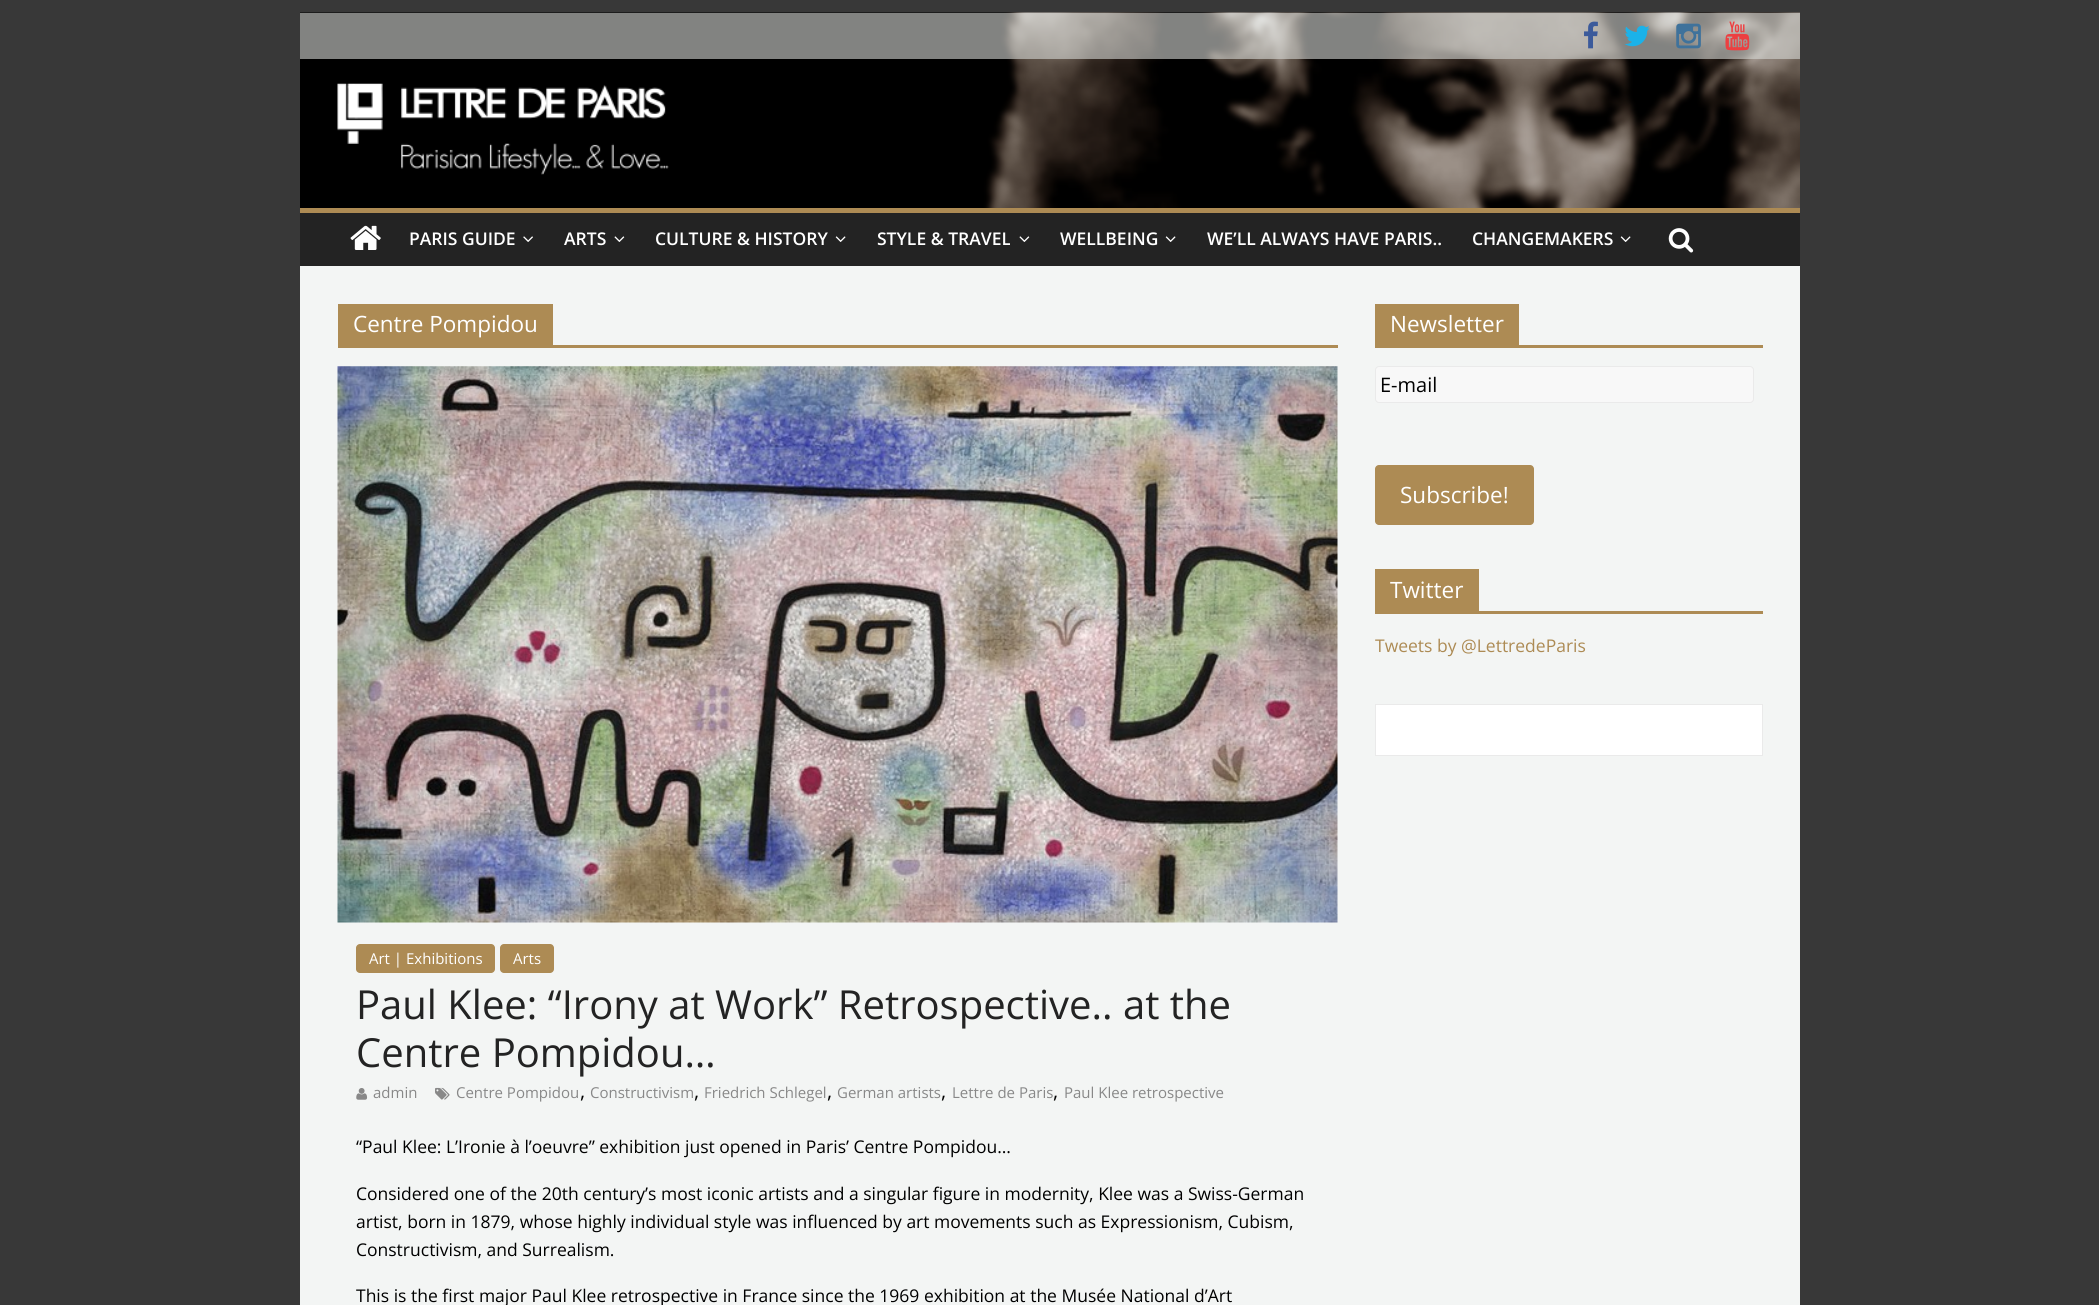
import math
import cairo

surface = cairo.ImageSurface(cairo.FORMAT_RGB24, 2099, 1305)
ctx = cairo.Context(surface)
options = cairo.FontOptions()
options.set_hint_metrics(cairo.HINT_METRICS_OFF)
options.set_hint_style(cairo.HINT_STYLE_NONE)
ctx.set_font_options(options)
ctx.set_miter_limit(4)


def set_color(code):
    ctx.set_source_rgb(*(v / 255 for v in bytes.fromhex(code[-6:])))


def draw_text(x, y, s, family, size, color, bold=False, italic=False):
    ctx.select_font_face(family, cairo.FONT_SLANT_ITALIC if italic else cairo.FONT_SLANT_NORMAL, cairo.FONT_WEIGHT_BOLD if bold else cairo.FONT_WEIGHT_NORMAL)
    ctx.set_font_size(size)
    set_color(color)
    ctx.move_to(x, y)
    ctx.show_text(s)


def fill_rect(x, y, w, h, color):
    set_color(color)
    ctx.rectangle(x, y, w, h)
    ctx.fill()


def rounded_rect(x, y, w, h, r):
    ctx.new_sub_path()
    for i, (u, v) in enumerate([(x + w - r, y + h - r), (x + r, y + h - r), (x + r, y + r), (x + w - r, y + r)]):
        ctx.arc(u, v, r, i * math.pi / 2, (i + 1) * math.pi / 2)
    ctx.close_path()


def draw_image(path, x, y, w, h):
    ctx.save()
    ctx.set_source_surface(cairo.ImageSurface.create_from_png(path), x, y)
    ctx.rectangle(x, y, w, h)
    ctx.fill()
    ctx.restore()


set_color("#383838")
ctx.paint()
draw_image("assets/img1.png", 300, 12, 1500, 196)
ctx.set_source_rgba(0.835, 0.843, 0.827, 0.61)
ctx.rectangle(300, 13, 1500, 46)
ctx.fill()
draw_image("assets/img2.png", 1584, 21, 14, 28)
draw_image("assets/img3.png", 1624, 25, 26, 22)
draw_image("assets/img4.png", 1676, 23, 25, 26)
draw_image("assets/img5.png", 1725, 21, 25, 30)
draw_image("assets/img6.png", 337, 83, 332, 92)
fill_rect(300, 213, 1500, 53, "#232323")
fill_rect(300, 208, 1500, 5, "#ad8b54")
draw_image("assets/img7.png", 350, 225, 31, 25)
draw_text(409, 245, "PARIS GUIDE", "Open Sans SemiBold", 17.5, "#ffffff")
draw_image("assets/img8.png", 523, 236, 10, 6)
draw_text(564, 245, "ARTS", "Open Sans SemiBold", 17.5, "#ffffff")
draw_image("assets/img9.png", 614, 236, 11, 6)
draw_text(655, 245, "CULTURE & HISTORY", "Open Sans SemiBold", 17.5, "#ffffff")
draw_image("assets/img10.png", 835, 236, 11, 6)
draw_text(877, 245, "STYLE & TRAVEL", "Open Sans SemiBold", 17.5, "#ffffff")
draw_image("assets/img9.png", 1019, 236, 11, 6)
draw_text(1060, 245, "WELLBEING", "Open Sans SemiBold", 17.5, "#ffffff")
draw_image("assets/img10.png", 1165, 236, 11, 6)
draw_text(1207, 245, "WE’LL ALWAYS HAVE PARIS..", "Open Sans SemiBold", 17.5, "#ffffff")
draw_text(1472, 245, "CHANGEMAKERS", "Open Sans SemiBold", 17.5, "#ffffff")
draw_image("assets/img10.png", 1620, 236, 11, 6)
draw_image("assets/img11.png", 1668, 228, 26, 25)
fill_rect(300, 266, 1500, 1039, "#f3f5f4")
fill_rect(338, 345, 1000, 3, "#ad8b54")
fill_rect(338, 304, 215, 41, "#ad8b54")
draw_text(353, 332, "Centre Pompidou", "Open Sans", 22.5, "#ffffff")
draw_image("assets/img12.png", 337, 366, 1001, 557)
set_color("#ad8b54")
rounded_rect(356, 944, 139, 29, 4)
ctx.fill()
draw_text(369, 964, "Art | Exhibitions", "Open Sans", 15, "#ffffff")
set_color("#ad8b54")
rounded_rect(500, 944, 54, 29, 4)
ctx.fill()
draw_text(513, 964, "Arts", "Open Sans", 15, "#ffffff")
draw_text(356, 1019, "Paul Klee: “Irony at Work” Retrospective.. at the", "Open Sans", 40, "#232323")
draw_text(356, 1067, "Centre Pompidou…", "Open Sans", 40, "#232323")
draw_image("assets/img13.png", 356, 1088, 12, 12)
draw_text(373, 1098, "admin", "Open Sans", 15, "#888888")
draw_image("assets/img14.png", 435, 1087, 15, 13)
draw_text(456, 1098, "Centre Pompidou", "Open Sans", 15, "#888888")
draw_text(580, 1098, ",", "Open Sans", 20, "#000000")
draw_text(590, 1098, "Constructivism", "Open Sans", 15, "#888888")
draw_text(694, 1098, ",", "Open Sans", 20, "#000000")
draw_text(704, 1098, "Friedrich Schlegel", "Open Sans", 15, "#888888")
draw_text(827, 1098, ",", "Open Sans", 20, "#000000")
draw_text(837, 1098, "German artists", "Open Sans", 15, "#888888")
draw_text(941, 1098, ",", "Open Sans", 20, "#000000")
draw_text(952, 1098, "Lettre de Paris", "Open Sans", 15, "#888888")
draw_text(1053, 1098, ",", "Open Sans", 20, "#000000")
draw_text(1064, 1098, "Paul Klee retrospective", "Open Sans", 15, "#888888")
draw_text(356, 1153, "“Paul Klee: L’Ironie à l’oeuvre” exhibition just opened in Paris’ Centre Pompidou…", "Open Sans", 17.5, "#000000")
draw_text(356, 1200, "Considered one of the 20th century’s most iconic artists and a singular figure in modernity, Klee was a Swiss-German", "Open Sans", 17.5, "#000000")
draw_text(356, 1228, "artist, born in 1879, whose highly individual style was influenced by art movements such as Expressionism, Cubism,", "Open Sans", 17.5, "#000000")
draw_text(356, 1256, "Constructivism, and Surrealism.", "Open Sans", 17.5, "#000000")
draw_text(356, 1302, "This is the first major Paul Klee retrospective in France since the 1969 exhibition at the Musée National d’Art", "Open Sans", 17.5, "#000000")
fill_rect(1375, 345, 388, 3, "#ad8b54")
fill_rect(1375, 304, 144, 41, "#ad8b54")
draw_text(1390, 332, "Newsletter", "Open Sans", 22.5, "#ffffff")
set_color("#f8f8f8")
rounded_rect(1375.5, 366.5, 378, 36, 3.5)
ctx.fill_preserve()
set_color("#eaeaea")
ctx.set_line_width(1)
ctx.stroke()
draw_text(1380, 392, "E-mail", "Open Sans", 20, "#000000")
set_color("#ad8b54")
rounded_rect(1375, 465, 159, 60, 4)
ctx.fill()
draw_text(1400, 503, "Subscribe!", "Open Sans", 22.5, "#ffffff")
fill_rect(1375, 611, 388, 3, "#ad8b54")
fill_rect(1375, 569, 104, 42, "#ad8b54")
draw_text(1390, 598, "Twitter", "Open Sans", 22.5, "#ffffff")
draw_text(1375, 652, "Tweets by @LettredeParis", "Open Sans", 17.5, "#ad8b54")
set_color("#ffffff")
ctx.rectangle(1375.5, 704.5, 387, 51)
ctx.fill_preserve()
set_color("#eaeaea")
ctx.stroke()
surface.write_to_png("output.png")
